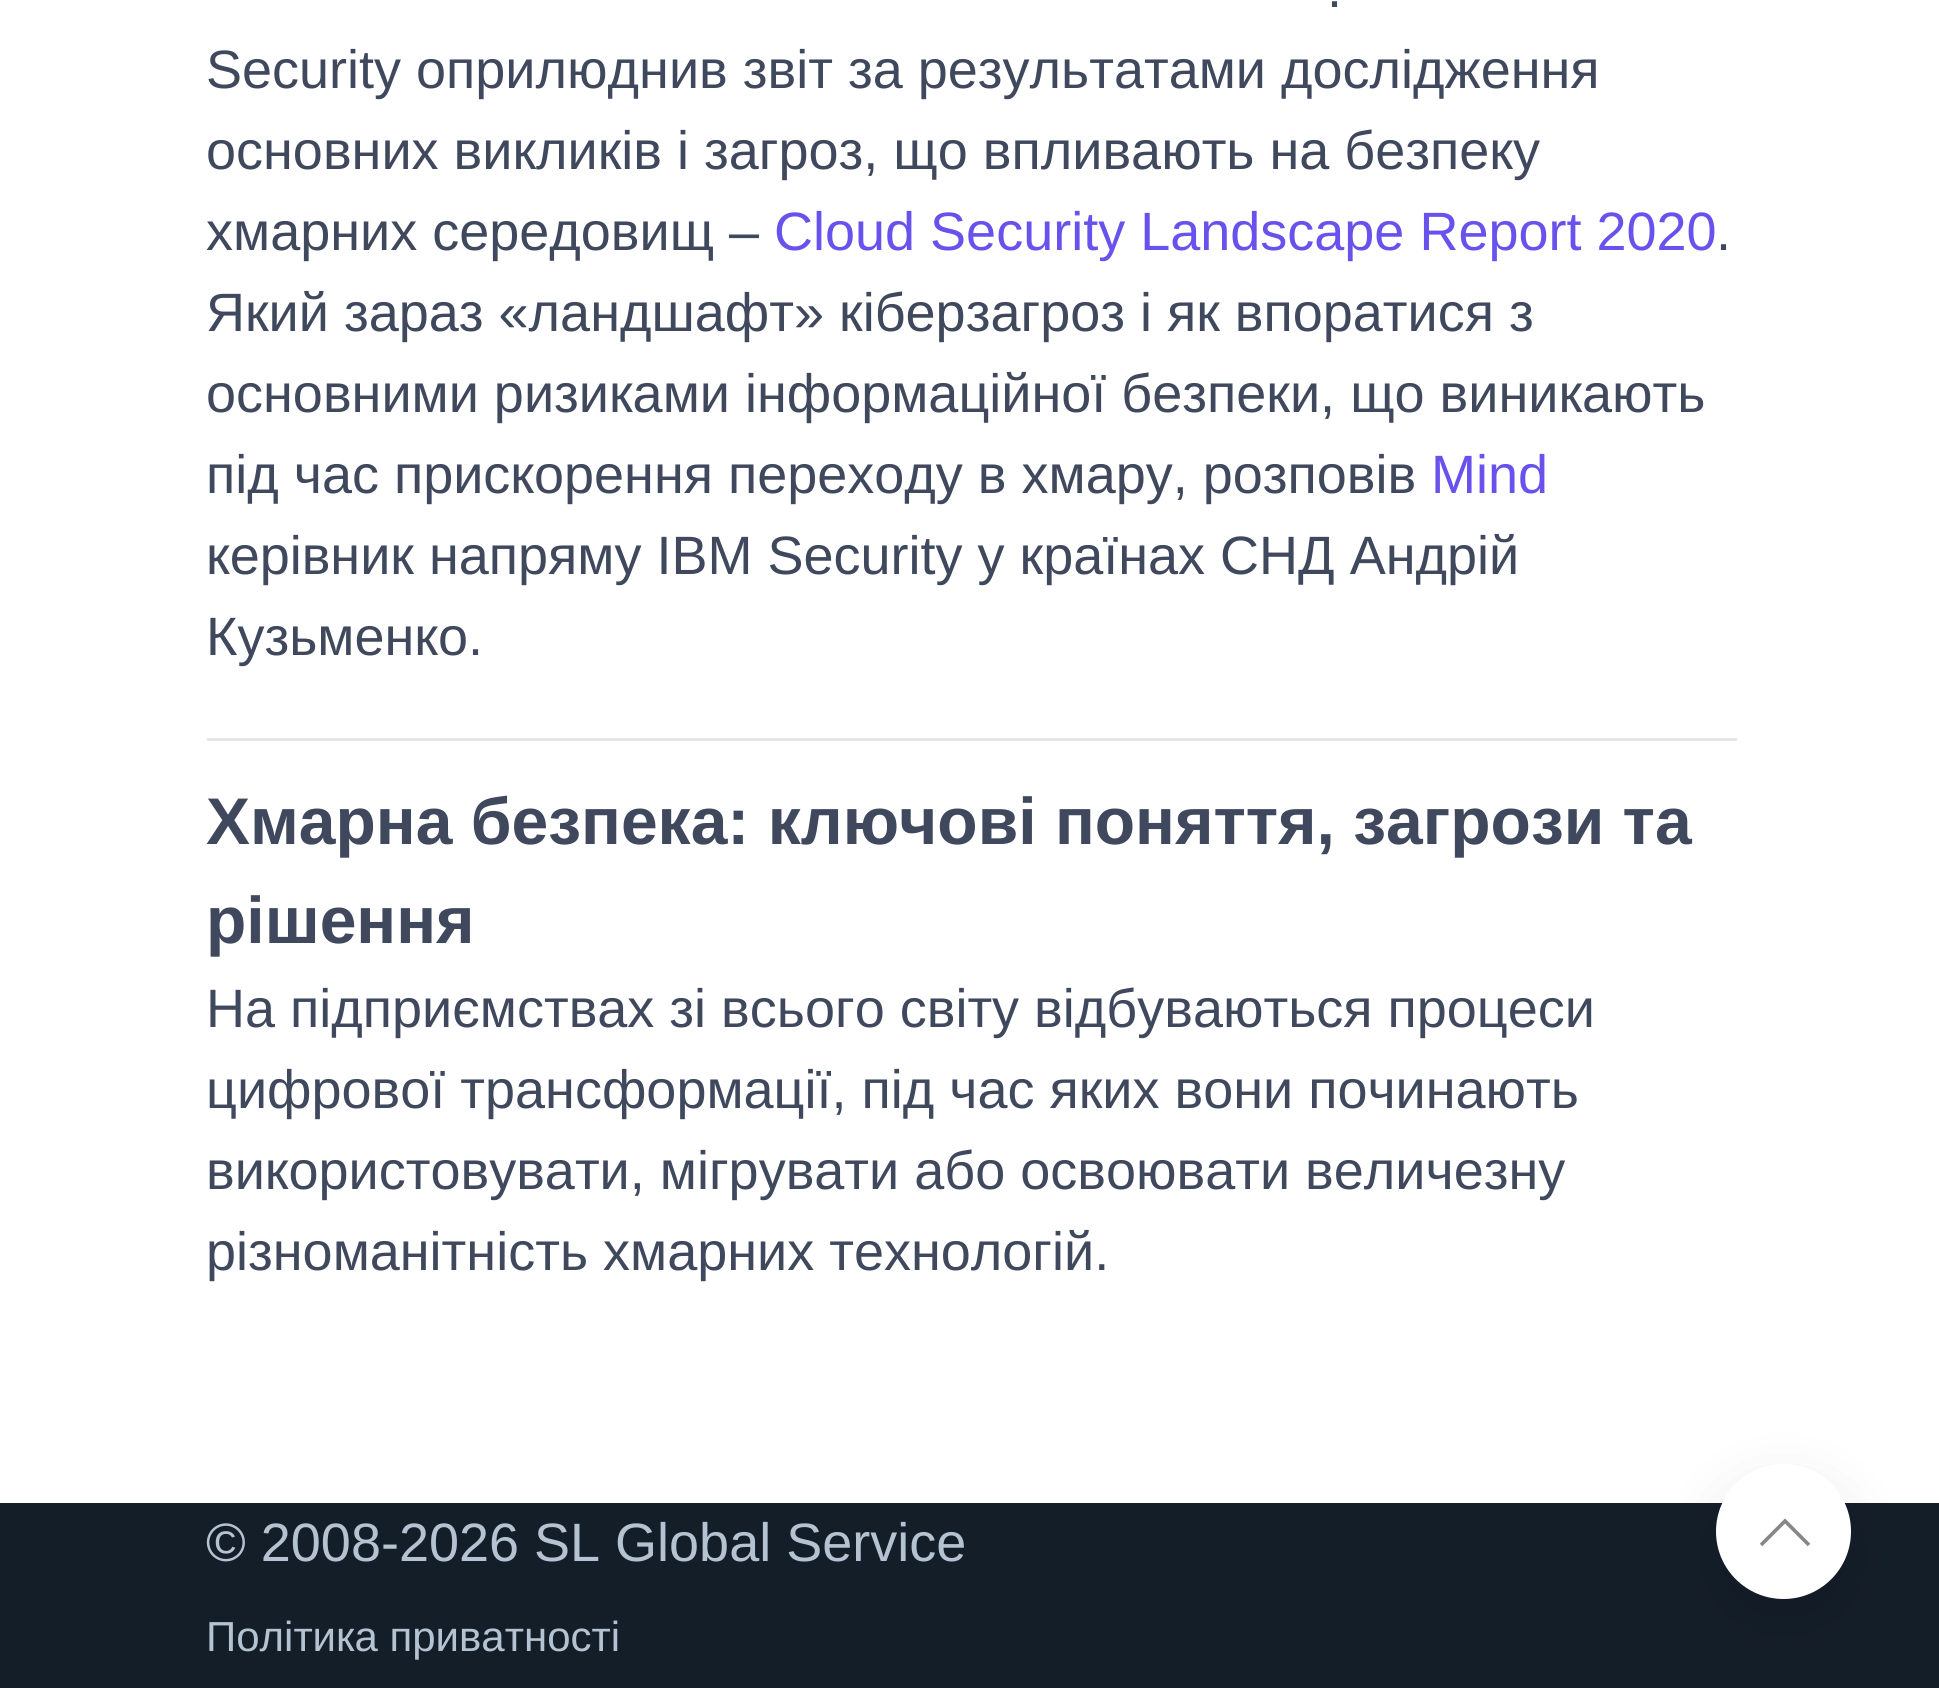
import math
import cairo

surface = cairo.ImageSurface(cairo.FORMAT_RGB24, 1939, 1688)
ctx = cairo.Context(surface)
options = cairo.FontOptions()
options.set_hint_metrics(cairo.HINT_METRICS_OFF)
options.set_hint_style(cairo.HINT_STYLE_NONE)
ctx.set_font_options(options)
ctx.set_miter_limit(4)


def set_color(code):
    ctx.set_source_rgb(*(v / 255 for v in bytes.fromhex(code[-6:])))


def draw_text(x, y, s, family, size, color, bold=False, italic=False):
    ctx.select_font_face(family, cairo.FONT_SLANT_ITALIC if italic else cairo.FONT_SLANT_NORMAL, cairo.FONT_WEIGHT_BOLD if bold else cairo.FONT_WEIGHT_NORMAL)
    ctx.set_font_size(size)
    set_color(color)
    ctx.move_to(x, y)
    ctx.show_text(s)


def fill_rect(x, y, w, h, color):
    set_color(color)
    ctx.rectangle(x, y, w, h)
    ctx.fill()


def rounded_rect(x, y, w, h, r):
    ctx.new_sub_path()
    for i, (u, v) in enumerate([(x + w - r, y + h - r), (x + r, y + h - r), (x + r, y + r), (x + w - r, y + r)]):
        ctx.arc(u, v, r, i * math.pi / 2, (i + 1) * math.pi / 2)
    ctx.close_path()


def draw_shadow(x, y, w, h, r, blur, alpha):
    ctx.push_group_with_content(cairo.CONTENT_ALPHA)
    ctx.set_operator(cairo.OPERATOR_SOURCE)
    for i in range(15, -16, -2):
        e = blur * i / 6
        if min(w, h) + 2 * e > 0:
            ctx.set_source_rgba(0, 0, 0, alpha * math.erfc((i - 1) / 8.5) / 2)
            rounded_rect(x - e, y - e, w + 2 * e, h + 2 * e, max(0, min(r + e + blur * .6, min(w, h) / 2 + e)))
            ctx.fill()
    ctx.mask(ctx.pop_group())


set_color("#ffffff")
ctx.paint()
draw_text(1327, 7, ".", "Liberation Sans", 54, "#3f485d")
draw_text(206, 88, "Security оприлюднив звіт за результатами дослідження", "Liberation Sans", 54, "#3f485d")
draw_text(206, 169, "основних викликів і загроз, що впливають на безпеку", "Liberation Sans", 54, "#3f485d")
draw_text(206, 250, "хмарних середовищ –", "Liberation Sans", 54, "#3f485d")
draw_text(774, 250, "Cloud Security Landscape Report 2020", "Liberation Sans", 54, "#6852ed")
draw_text(1716, 250, ".", "Liberation Sans", 54, "#3f485d")
draw_text(206, 331, "Який зараз «ландшафт» кіберзагроз і як впоратися з", "Liberation Sans", 54, "#3f485d")
draw_text(206, 412, "основними ризиками інформаційної безпеки, що виникають", "Liberation Sans", 54, "#3f485d")
draw_text(206, 493, "під час прискорення переходу в хмару, розповів", "Liberation Sans", 54, "#3f485d")
draw_text(1431, 493, "Mind", "Liberation Sans", 54, "#6852ed")
draw_text(206, 574, "керівник напряму IBM Security у країнах СНД Андрій", "Liberation Sans", 54, "#3f485d")
draw_text(206, 655, "Кузьменко.", "Liberation Sans", 54, "#3f485d")
fill_rect(207, 738, 1530, 3, "#e6e6e6")
draw_text(206, 844, "Хмарна безпека: ключові поняття, загрози та", "Liberation Sans", 66, "#3f485d", bold=True)
draw_text(206, 943, "рішення", "Liberation Sans", 66, "#3f485d", bold=True)
draw_text(206, 1027, "На підприємствах зі всього світу відбуваються процеси", "Liberation Sans", 54, "#3f485d")
draw_text(206, 1108, "цифрової трансформації, під час яких вони починають", "Liberation Sans", 54, "#3f485d")
draw_text(206, 1189, "використовувати, мігрувати або освоювати величезну", "Liberation Sans", 54, "#3f485d")
draw_text(206, 1270, "різноманітність хмарних технологій.", "Liberation Sans", 54, "#3f485d")
fill_rect(0, 1503, 1939, 185, "#141e29")
draw_text(206, 1561, "© 2008-2026 SL Global Service", "Liberation Sans", 54, "#b4c2d1")
draw_text(206, 1651, "Політика приватності", "Liberation Sans", 42, "#b4c2d1")
set_color("#000000")
draw_shadow(1716, 1488, 135, 135, 67.5, 30, 0.1)
set_color("#ffffff")
ctx.arc(1783.5, 1531.5, 67.5, 0, 2 * math.pi)
ctx.fill()
ctx.new_path()
ctx.move_to(1761, 1545)
ctx.line_to(1785, 1521)
ctx.line_to(1809, 1545)
set_color("#868686")
ctx.set_line_width(3.6)
ctx.stroke()
surface.write_to_png("output.png")
